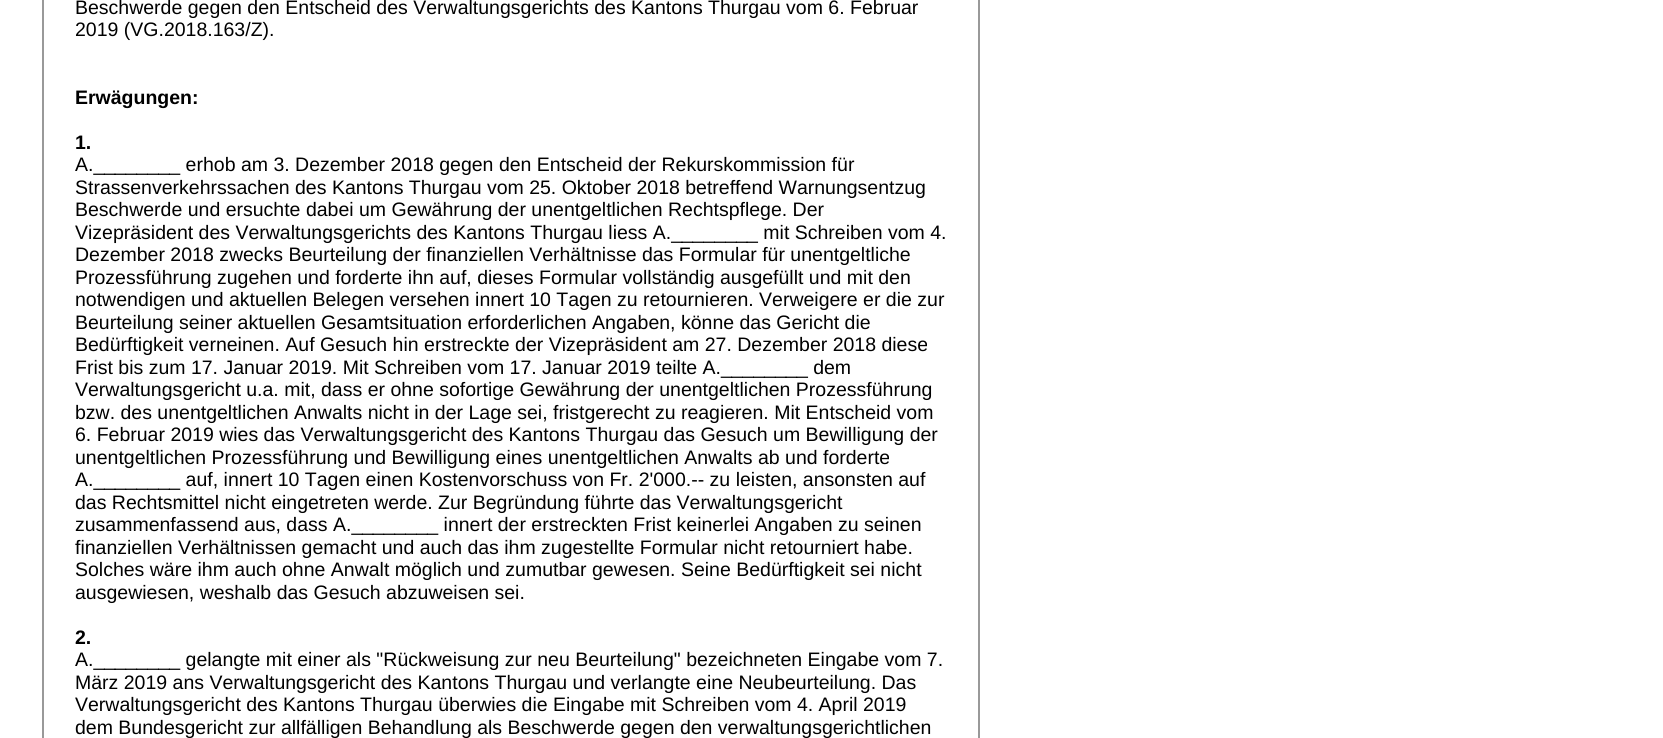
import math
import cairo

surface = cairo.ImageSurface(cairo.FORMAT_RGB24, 1663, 738)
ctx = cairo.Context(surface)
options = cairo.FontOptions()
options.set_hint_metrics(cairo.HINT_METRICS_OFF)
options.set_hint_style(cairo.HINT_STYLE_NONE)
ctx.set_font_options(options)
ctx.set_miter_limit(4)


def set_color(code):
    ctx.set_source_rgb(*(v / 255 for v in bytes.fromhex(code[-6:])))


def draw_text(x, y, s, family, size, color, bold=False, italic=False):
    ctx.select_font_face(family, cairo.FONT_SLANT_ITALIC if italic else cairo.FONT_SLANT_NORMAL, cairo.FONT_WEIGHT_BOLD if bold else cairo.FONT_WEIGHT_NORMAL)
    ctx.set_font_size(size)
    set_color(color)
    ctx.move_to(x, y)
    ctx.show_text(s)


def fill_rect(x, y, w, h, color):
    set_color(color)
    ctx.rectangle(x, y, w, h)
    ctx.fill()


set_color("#ffffff")
ctx.paint()
fill_rect(978, 0, 2, 738, "#999999")
fill_rect(42, 0, 2, 738, "#999999")
draw_text(75, 14, "Beschwerde gegen den Entscheid des Verwaltungsgerichts des Kantons Thurgau vom 6. Februar", "Liberation Sans", 19.5, "#000000")
draw_text(75, 36, "2019 (VG.2018.163/Z).", "Liberation Sans", 19.5, "#000000")
draw_text(75, 104, "Erwägungen:", "Liberation Sans", 19.5, "#000000", bold=True)
draw_text(75, 149, "1.", "Liberation Sans", 19.5, "#000000", bold=True)
draw_text(75, 171, "A.________ erhob am 3. Dezember 2018 gegen den Entscheid der Rekurskommission für", "Liberation Sans", 19.5, "#000000")
draw_text(75, 194, "Strassenverkehrssachen des Kantons Thurgau vom 25. Oktober 2018 betreffend Warnungsentzug", "Liberation Sans", 19.5, "#000000")
draw_text(75, 216, "Beschwerde und ersuchte dabei um Gewährung der unentgeltlichen Rechtspflege. Der", "Liberation Sans", 19.5, "#000000")
draw_text(75, 239, "Vizepräsident des Verwaltungsgerichts des Kantons Thurgau liess A.________ mit Schreiben vom 4.", "Liberation Sans", 19.5, "#000000")
draw_text(75, 261, "Dezember 2018 zwecks Beurteilung der finanziellen Verhältnisse das Formular für unentgeltliche", "Liberation Sans", 19.5, "#000000")
draw_text(75, 284, "Prozessführung zugehen und forderte ihn auf, dieses Formular vollständig ausgefüllt und mit den", "Liberation Sans", 19.5, "#000000")
draw_text(75, 306, "notwendigen und aktuellen Belegen versehen innert 10 Tagen zu retournieren. Verweigere er die zur", "Liberation Sans", 19.5, "#000000")
draw_text(75, 329, "Beurteilung seiner aktuellen Gesamtsituation erforderlichen Angaben, könne das Gericht die", "Liberation Sans", 19.5, "#000000")
draw_text(75, 351, "Bedürftigkeit verneinen. Auf Gesuch hin erstreckte der Vizepräsident am 27. Dezember 2018 diese", "Liberation Sans", 19.5, "#000000")
draw_text(75, 374, "Frist bis zum 17. Januar 2019. Mit Schreiben vom 17. Januar 2019 teilte A.________ dem", "Liberation Sans", 19.5, "#000000")
draw_text(75, 396, "Verwaltungsgericht u.a. mit, dass er ohne sofortige Gewährung der unentgeltlichen Prozessführung", "Liberation Sans", 19.5, "#000000")
draw_text(75, 419, "bzw. des unentgeltlichen Anwalts nicht in der Lage sei, fristgerecht zu reagieren. Mit Entscheid vom", "Liberation Sans", 19.5, "#000000")
draw_text(75, 441, "6. Februar 2019 wies das Verwaltungsgericht des Kantons Thurgau das Gesuch um Bewilligung der", "Liberation Sans", 19.5, "#000000")
draw_text(75, 464, "unentgeltlichen Prozessführung und Bewilligung eines unentgeltlichen Anwalts ab und forderte", "Liberation Sans", 19.5, "#000000")
draw_text(75, 486, "A.________ auf, innert 10 Tagen einen Kostenvorschuss von Fr. 2'000.-- zu leisten, ansonsten auf", "Liberation Sans", 19.5, "#000000")
draw_text(75, 509, "das Rechtsmittel nicht eingetreten werde. Zur Begründung führte das Verwaltungsgericht", "Liberation Sans", 19.5, "#000000")
draw_text(75, 531, "zusammenfassend aus, dass A.________ innert der erstreckten Frist keinerlei Angaben zu seinen", "Liberation Sans", 19.5, "#000000")
draw_text(75, 554, "finanziellen Verhältnissen gemacht und auch das ihm zugestellte Formular nicht retourniert habe.", "Liberation Sans", 19.5, "#000000")
draw_text(75, 576, "Solches wäre ihm auch ohne Anwalt möglich und zumutbar gewesen. Seine Bedürftigkeit sei nicht", "Liberation Sans", 19.5, "#000000")
draw_text(75, 599, "ausgewiesen, weshalb das Gesuch abzuweisen sei.", "Liberation Sans", 19.5, "#000000")
draw_text(75, 644, "2.", "Liberation Sans", 19.5, "#000000", bold=True)
draw_text(75, 666, "A.________ gelangte mit einer als \"Rückweisung zur neu Beurteilung\" bezeichneten Eingabe vom 7.", "Liberation Sans", 19.5, "#000000")
draw_text(75, 689, "März 2019 ans Verwaltungsgericht des Kantons Thurgau und verlangte eine Neubeurteilung. Das", "Liberation Sans", 19.5, "#000000")
draw_text(75, 711, "Verwaltungsgericht des Kantons Thurgau überwies die Eingabe mit Schreiben vom 4. April 2019", "Liberation Sans", 19.5, "#000000")
draw_text(75, 734, "dem Bundesgericht zur allfälligen Behandlung als Beschwerde gegen den verwaltungsgerichtlichen", "Liberation Sans", 19.5, "#000000")
surface.write_to_png("output.png")
